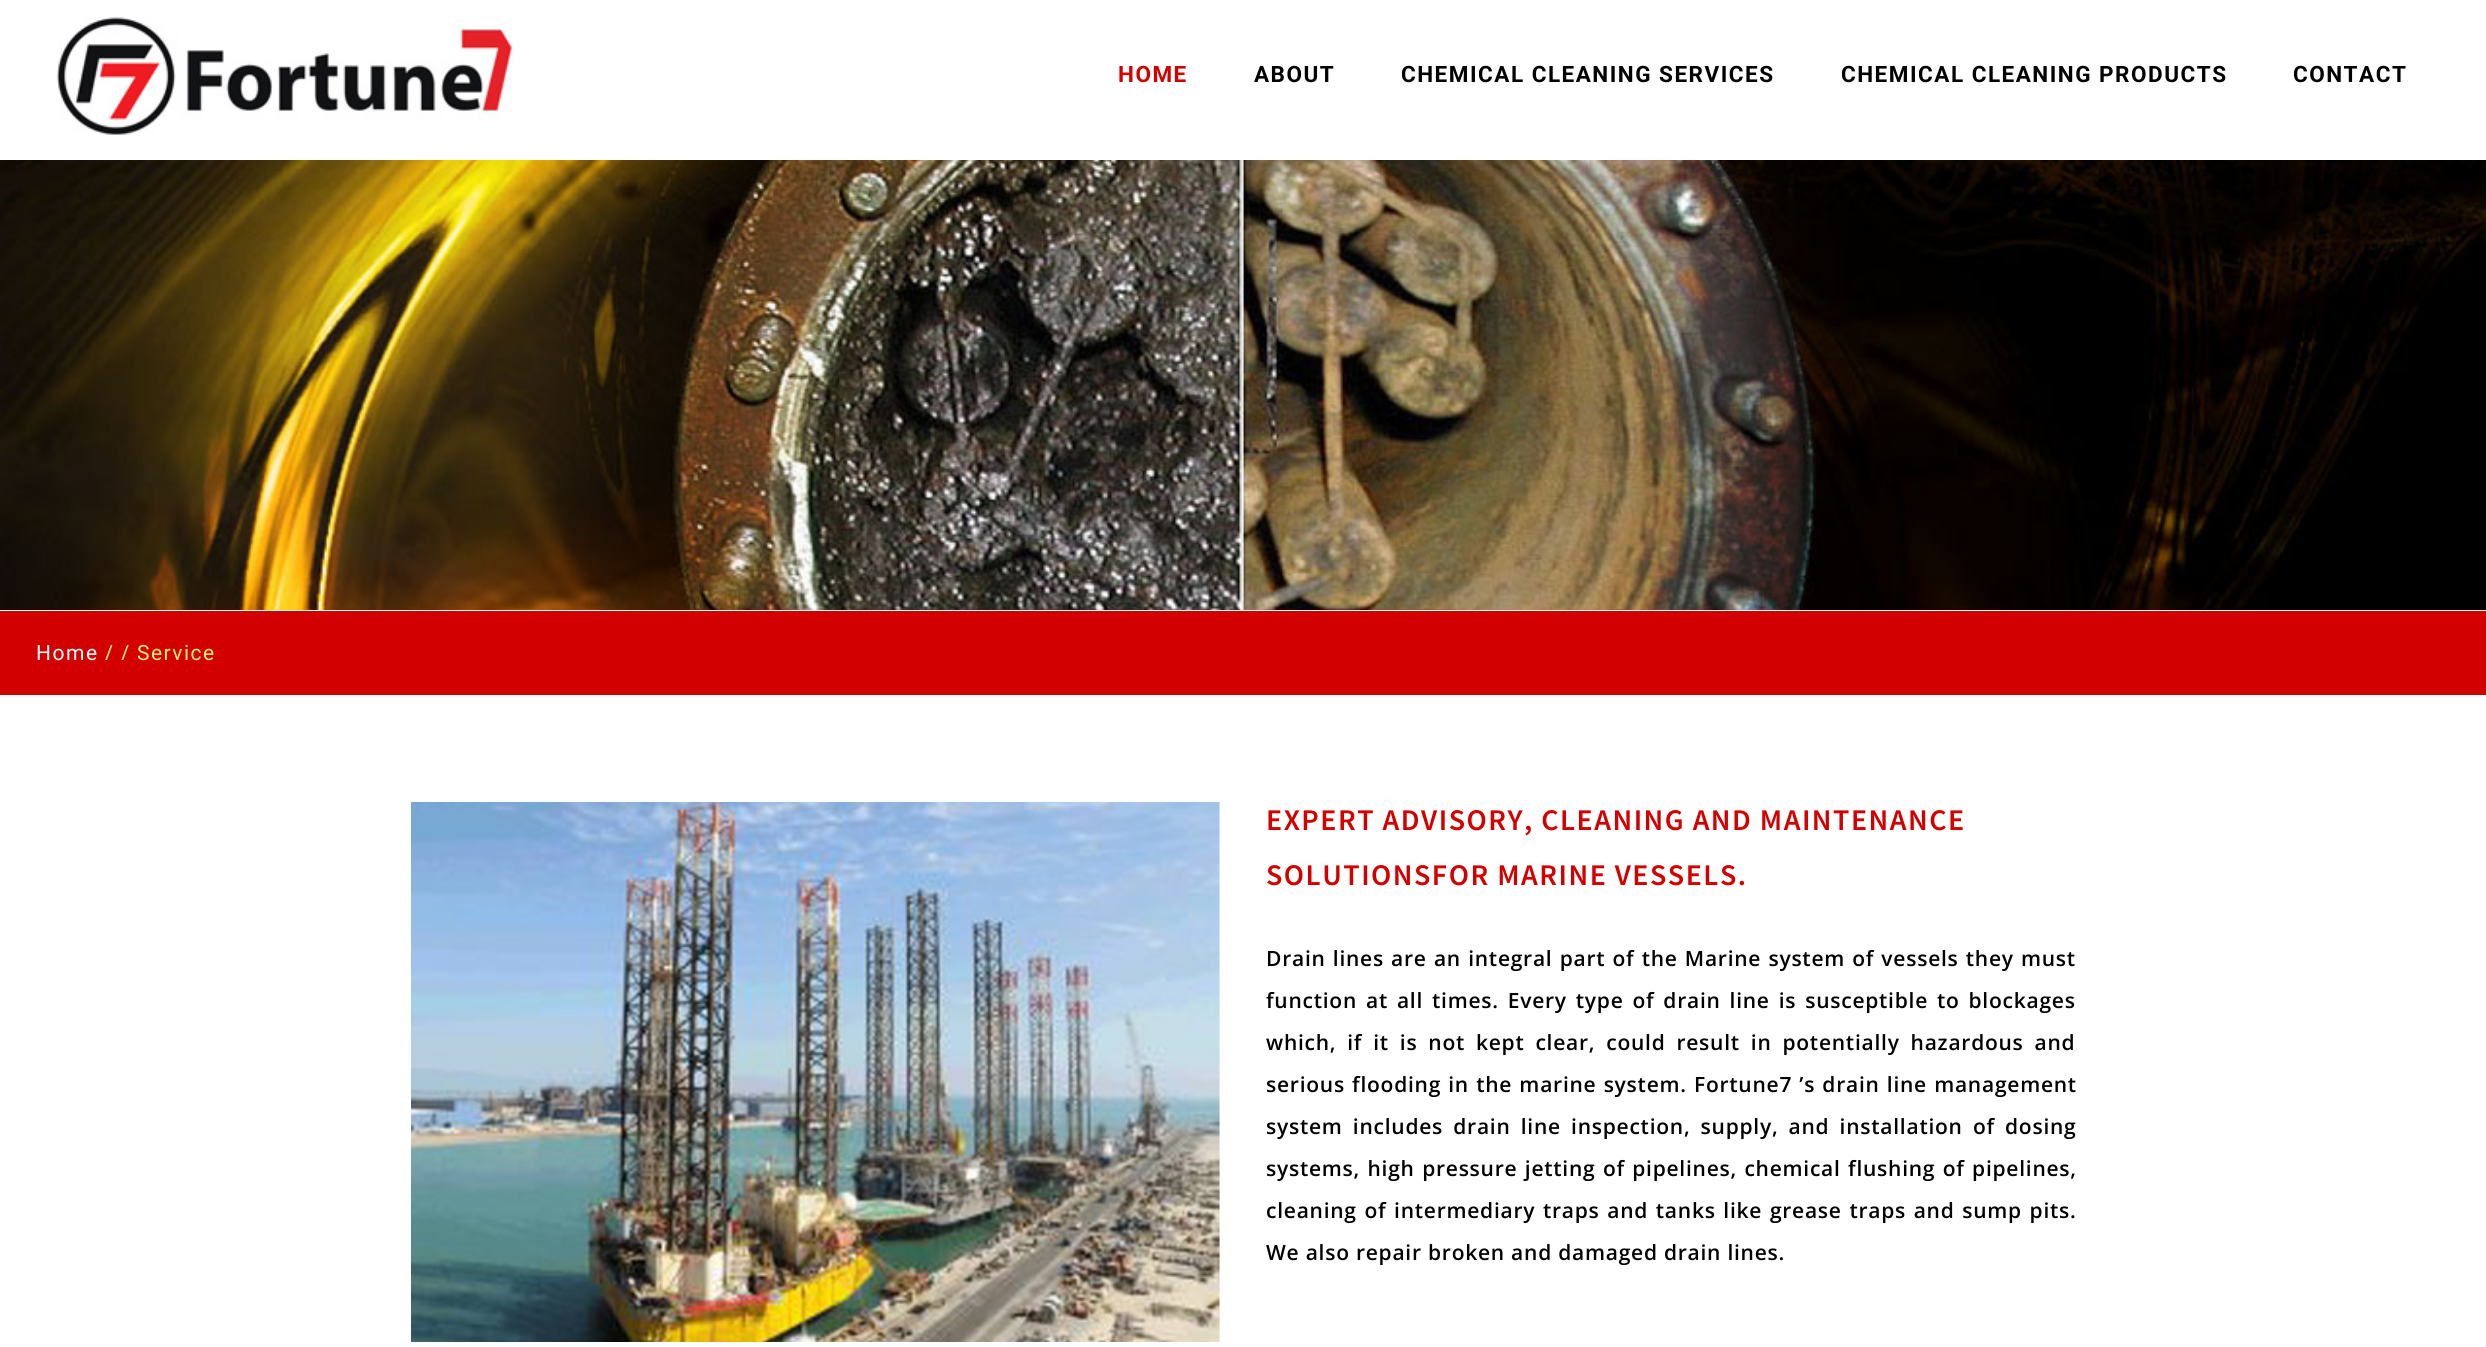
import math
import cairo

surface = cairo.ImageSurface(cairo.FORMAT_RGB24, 2486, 1347)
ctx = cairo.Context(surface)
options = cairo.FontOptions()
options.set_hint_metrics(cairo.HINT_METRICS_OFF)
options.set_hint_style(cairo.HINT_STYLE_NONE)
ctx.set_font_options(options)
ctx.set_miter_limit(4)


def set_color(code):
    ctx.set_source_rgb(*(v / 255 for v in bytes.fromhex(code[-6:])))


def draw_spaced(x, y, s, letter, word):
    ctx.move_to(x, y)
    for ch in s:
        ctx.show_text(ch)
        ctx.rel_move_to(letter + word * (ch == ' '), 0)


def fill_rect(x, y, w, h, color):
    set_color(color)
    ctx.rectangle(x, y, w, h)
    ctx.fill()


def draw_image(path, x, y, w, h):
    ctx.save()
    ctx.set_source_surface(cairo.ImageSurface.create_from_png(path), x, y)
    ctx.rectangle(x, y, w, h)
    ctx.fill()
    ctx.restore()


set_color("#ffffff")
ctx.paint()
draw_image("assets/img1.png", 56, 17, 458, 118)
ctx.select_font_face("Roboto", cairo.FONT_SLANT_NORMAL, cairo.FONT_WEIGHT_BOLD)
ctx.set_font_size(22.5)
set_color("#d40000")
draw_spaced(1118, 82, "HOME", 1.5, 0)
set_color("#000000")
draw_spaced(1254, 82, "ABOUT", 1.5, 0)
draw_spaced(1401, 82, "CHEMICAL CLEANING SERVICES", 1.5, 0)
draw_spaced(1841, 82, "CHEMICAL CLEANING PRODUCTS", 1.5, 0)
draw_spaced(2293, 82, "CONTACT", 1.5, 0)
draw_image("assets/img2.png", 0, 160, 2486, 450)
fill_rect(0, 611, 2486, 84, "#d30000")
ctx.select_font_face("Roboto")
ctx.set_font_size(21)
set_color("#ffffff")
draw_spaced(36, 660, "Home", 1.5, 0)
ctx.select_font_face("Open Sans")
set_color("#fff172")
draw_spaced(105, 660, "/ /", 1.5, 0)
ctx.select_font_face("Roboto")
draw_spaced(137, 660, "Service", 1.5, 0)
draw_image("assets/img3.png", 411, 802, 809, 540)
ctx.select_font_face("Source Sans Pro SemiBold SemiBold")
ctx.set_font_size(30)
set_color("#d40000")
draw_spaced(1266, 830, "EXPERT ADVISORY, CLEANING AND MAINTENANCE", 1.5, 0)
draw_spaced(1266, 885, "SOLUTIONSFOR MARINE VESSELS.", 1.5, 0)
ctx.select_font_face("Open Sans SemiBold")
ctx.set_font_size(21)
set_color("#000000")
draw_spaced(1266, 966, "Drain lines are an integral part of the Marine system of vessels they must", 0.75, 1)
draw_spaced(1266, 1008, "function at all times. Every type of drain line is susceptible to blockages", 0.75, 2.75)
draw_spaced(1266, 1050, "which, if it is not kept clear, could result in potentially hazardous and", 0.75, 4.75)
draw_spaced(1266, 1092, "serious flooding in the marine system. Fortune7 ’s drain line management", 0.75, 1)
draw_spaced(1266, 1134, "system includes drain line inspection, supply, and installation of dosing", 0.75, 4)
draw_spaced(1266, 1176, "systems, high pressure jetting of pipelines, chemical flushing of pipelines,", 0.75, 1.25)
draw_spaced(1266, 1218, "cleaning of intermediary traps and tanks like grease traps and sump pits.", 0.75, 1.5)
draw_spaced(1266, 1260, "We also repair broken and damaged drain lines.", 0.75, 0)
surface.write_to_png("output.png")
